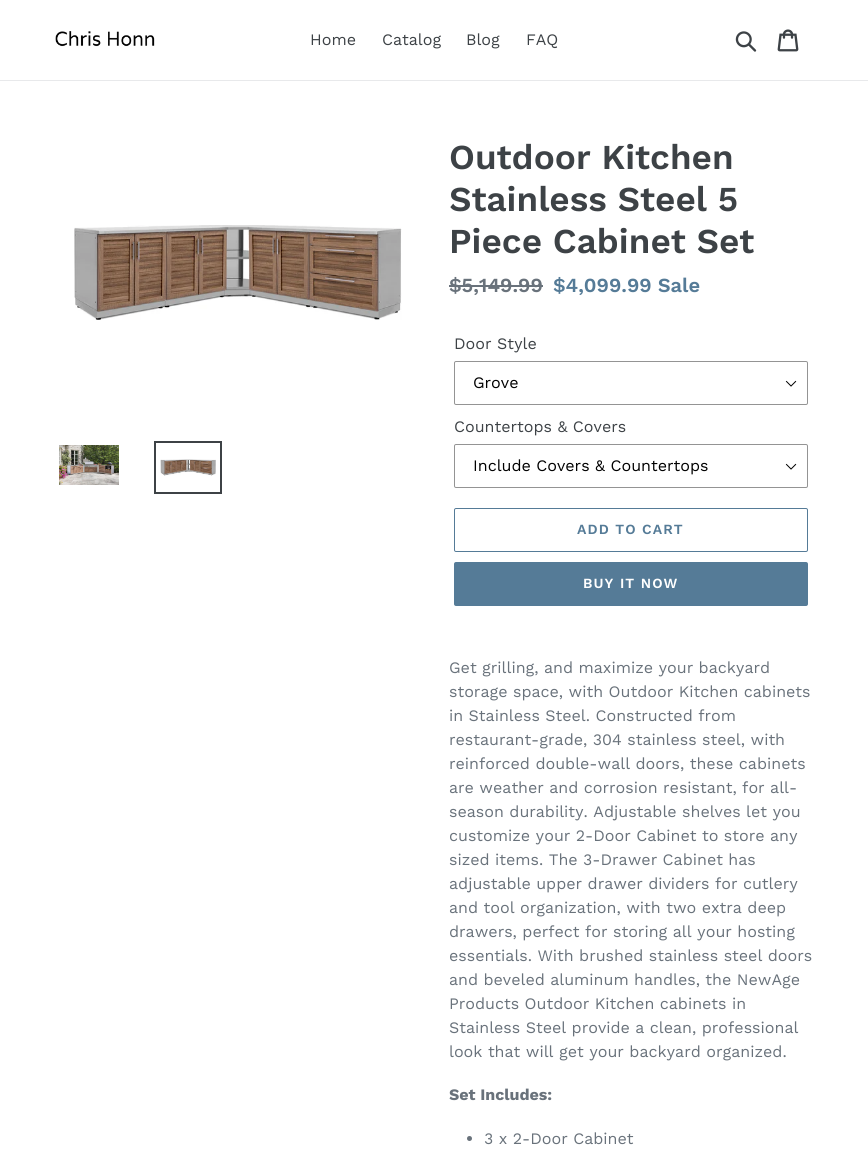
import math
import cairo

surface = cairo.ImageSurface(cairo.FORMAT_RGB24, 868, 1164)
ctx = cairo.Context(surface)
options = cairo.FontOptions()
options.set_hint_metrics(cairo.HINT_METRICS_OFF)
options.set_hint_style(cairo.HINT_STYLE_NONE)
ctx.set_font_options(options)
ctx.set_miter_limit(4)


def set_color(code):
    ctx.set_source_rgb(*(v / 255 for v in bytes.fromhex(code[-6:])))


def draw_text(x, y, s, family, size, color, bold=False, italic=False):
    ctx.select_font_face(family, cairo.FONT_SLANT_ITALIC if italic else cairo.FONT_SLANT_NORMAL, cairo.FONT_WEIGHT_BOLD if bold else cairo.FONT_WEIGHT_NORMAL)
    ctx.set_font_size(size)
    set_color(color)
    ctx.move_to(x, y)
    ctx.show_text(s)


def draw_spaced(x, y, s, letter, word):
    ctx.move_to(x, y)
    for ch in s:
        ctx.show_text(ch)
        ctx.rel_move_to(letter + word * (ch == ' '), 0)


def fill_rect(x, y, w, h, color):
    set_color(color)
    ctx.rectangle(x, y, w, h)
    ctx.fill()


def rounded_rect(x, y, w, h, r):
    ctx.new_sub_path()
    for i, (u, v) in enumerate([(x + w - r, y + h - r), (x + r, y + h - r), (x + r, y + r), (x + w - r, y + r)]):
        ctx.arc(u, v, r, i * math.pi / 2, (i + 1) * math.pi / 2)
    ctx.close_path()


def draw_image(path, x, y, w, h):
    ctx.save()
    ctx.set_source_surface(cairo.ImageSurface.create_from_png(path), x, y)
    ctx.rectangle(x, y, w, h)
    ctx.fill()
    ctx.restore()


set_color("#ffffff")
ctx.paint()
fill_rect(0, 80, 868, 1, "#e8e9eb")
draw_image("assets/img1.png", 55, 31, 100, 16)
draw_text(310, 45, "Home", "Work Sans", 16, "#3d4246")
draw_text(382, 45, "Catalog", "Work Sans", 16, "#3d4246")
draw_text(466, 45, "Blog", "Work Sans", 16, "#3d4246")
draw_text(526, 45, "FAQ", "Work Sans", 16, "#3d4246")
draw_image("assets/img2.png", 735, 31, 22, 21)
draw_image("assets/img3.png", 777, 29, 22, 23)
draw_image("assets/img4.png", 74, 225, 328, 95)
draw_image("assets/img5.png", 59, 445, 60, 40)
ctx.rectangle(155, 442, 66, 51)
ctx.stroke()
draw_image("assets/img6.png", 160, 459, 56, 17)
draw_text(449, 169, "Outdoor Kitchen", "Work Sans SemiBold", 35, "#3d4246")
draw_text(449, 211, "Stainless Steel 5", "Work Sans SemiBold", 35, "#3d4246")
draw_text(449, 253, "Piece Cabinet Set", "Work Sans SemiBold", 35, "#3d4246")
draw_text(449, 292, "$5,149.99", "Work Sans SemiBold", 20, "#69727b")
fill_rect(449, 285, 94, 2, "#69727b")
draw_text(553, 292, "$4,099.99 Sale", "Work Sans SemiBold", 20, "#557b97")
draw_text(454, 349, "Door Style", "Work Sans", 16, "#3d4246")
draw_image("assets/img7.png", 785, 380, 12, 7)
rounded_rect(454.5, 361.5, 353, 43, 1.5)
set_color("#949494")
ctx.set_line_width(1)
ctx.stroke()
draw_text(473, 388, "Grove", "Work Sans", 16, "#000000")
draw_text(454, 432, "Countertops & Covers", "Work Sans", 16, "#3d4246")
draw_image("assets/img7.png", 785, 463, 12, 7)
rounded_rect(454.5, 444.5, 353, 43, 1.5)
set_color("#949494")
ctx.stroke()
draw_text(473, 471, "Include Covers & Countertops", "Work Sans", 16, "#000000")
rounded_rect(454.5, 508.5, 353, 43, 1.5)
set_color("#557b97")
ctx.stroke()
ctx.select_font_face("Work Sans SemiBold")
ctx.set_font_size(14)
draw_spaced(577, 534, "ADD TO CART", 1.1, 0)
rounded_rect(454, 562, 354, 44, 2)
ctx.fill()
set_color("#ffffff")
draw_spaced(583, 588, "BUY IT NOW", 1.1, 0)
draw_text(449, 673, "Get grilling, and maximize your backyard", "Work Sans", 16, "#69727b")
draw_text(449, 697, "storage space, with Outdoor Kitchen cabinets", "Work Sans", 16, "#69727b")
draw_text(449, 721, "in Stainless Steel. Constructed from", "Work Sans", 16, "#69727b")
draw_text(449, 745, "restaurant-grade, 304 stainless steel, with", "Work Sans", 16, "#69727b")
draw_text(449, 769, "reinforced double-wall doors, these cabinets", "Work Sans", 16, "#69727b")
draw_text(449, 793, "are weather and corrosion resistant, for all-", "Work Sans", 16, "#69727b")
draw_text(449, 817, "season durability. Adjustable shelves let you", "Work Sans", 16, "#69727b")
draw_text(449, 841, "customize your 2-Door Cabinet to store any", "Work Sans", 16, "#69727b")
draw_text(449, 865, "sized items. The 3-Drawer Cabinet has", "Work Sans", 16, "#69727b")
draw_text(449, 889, "adjustable upper drawer dividers for cutlery", "Work Sans", 16, "#69727b")
draw_text(449, 913, "and tool organization, with two extra deep", "Work Sans", 16, "#69727b")
draw_text(449, 937, "drawers, perfect for storing all your hosting", "Work Sans", 16, "#69727b")
draw_text(449, 961, "essentials. With brushed stainless steel doors", "Work Sans", 16, "#69727b")
draw_text(449, 985, "and beveled aluminum handles, the NewAge", "Work Sans", 16, "#69727b")
draw_text(449, 1009, "Products Outdoor Kitchen cabinets in", "Work Sans", 16, "#69727b")
draw_text(449, 1033, "Stainless Steel provide a clean, professional", "Work Sans", 16, "#69727b")
draw_text(449, 1057, "look that will get your backyard organized.", "Work Sans", 16, "#69727b")
draw_text(449, 1100, "Set Includes:", "Work Sans", 16, "#69727b", bold=True)
ctx.new_path()
ctx.arc(469.5, 1138.5, 2.5, 0, 2 * math.pi)
ctx.fill()
draw_text(484, 1144, "3 x 2-Door Cabinet", "Work Sans", 16, "#69727b")
surface.write_to_png("output.png")
